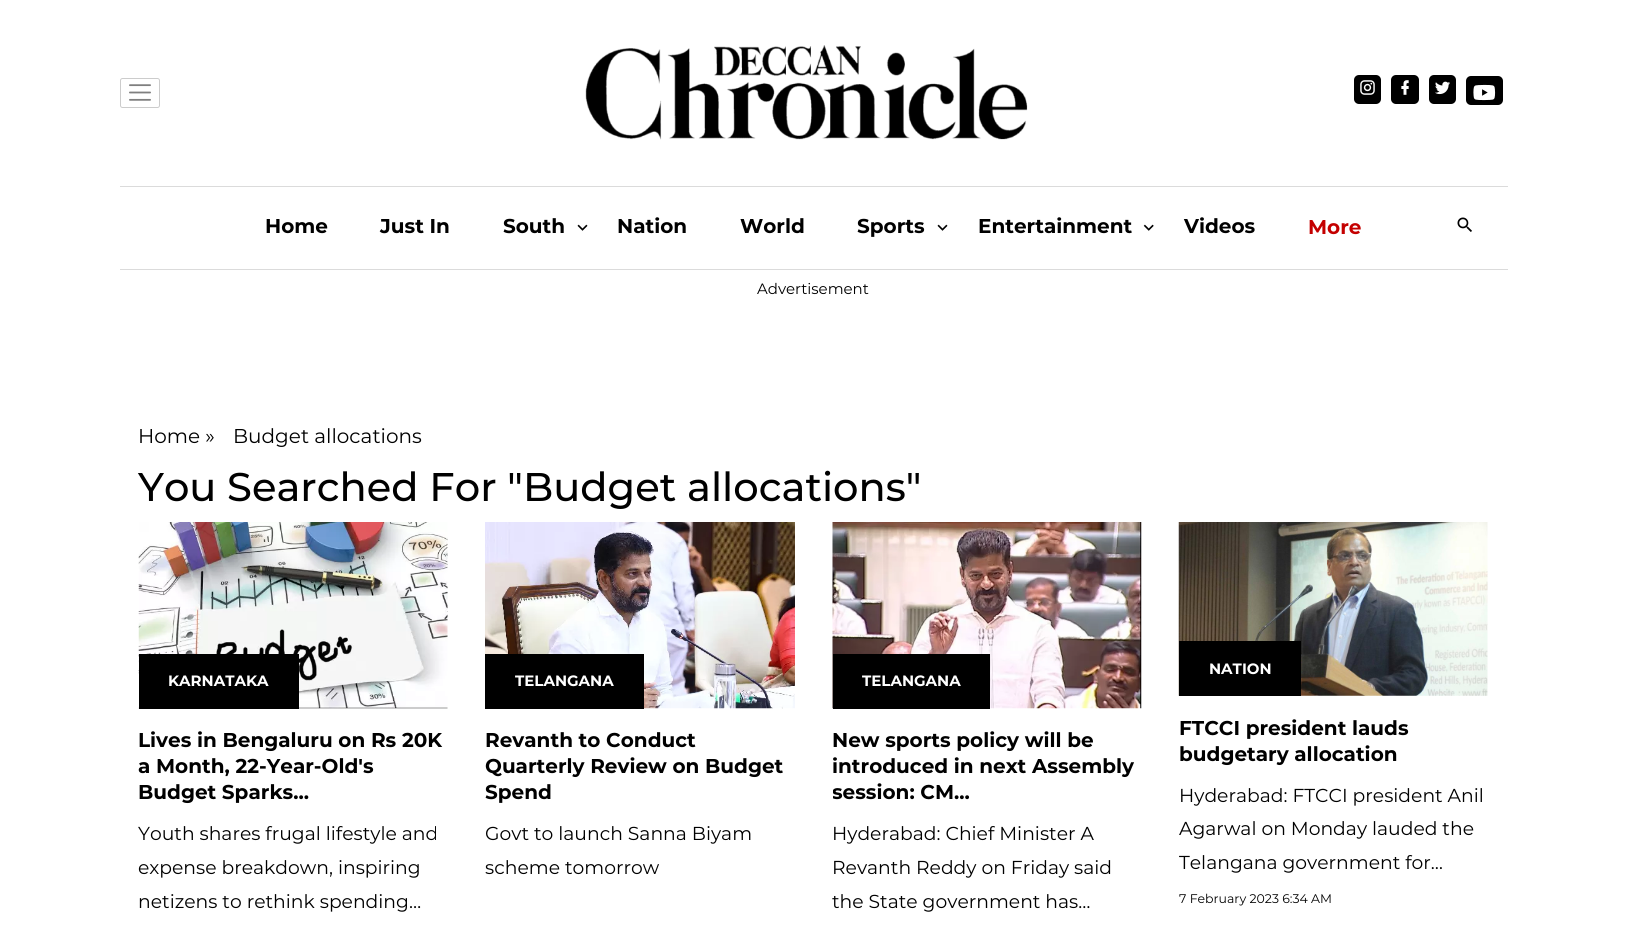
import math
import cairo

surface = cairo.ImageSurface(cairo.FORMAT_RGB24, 1626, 938)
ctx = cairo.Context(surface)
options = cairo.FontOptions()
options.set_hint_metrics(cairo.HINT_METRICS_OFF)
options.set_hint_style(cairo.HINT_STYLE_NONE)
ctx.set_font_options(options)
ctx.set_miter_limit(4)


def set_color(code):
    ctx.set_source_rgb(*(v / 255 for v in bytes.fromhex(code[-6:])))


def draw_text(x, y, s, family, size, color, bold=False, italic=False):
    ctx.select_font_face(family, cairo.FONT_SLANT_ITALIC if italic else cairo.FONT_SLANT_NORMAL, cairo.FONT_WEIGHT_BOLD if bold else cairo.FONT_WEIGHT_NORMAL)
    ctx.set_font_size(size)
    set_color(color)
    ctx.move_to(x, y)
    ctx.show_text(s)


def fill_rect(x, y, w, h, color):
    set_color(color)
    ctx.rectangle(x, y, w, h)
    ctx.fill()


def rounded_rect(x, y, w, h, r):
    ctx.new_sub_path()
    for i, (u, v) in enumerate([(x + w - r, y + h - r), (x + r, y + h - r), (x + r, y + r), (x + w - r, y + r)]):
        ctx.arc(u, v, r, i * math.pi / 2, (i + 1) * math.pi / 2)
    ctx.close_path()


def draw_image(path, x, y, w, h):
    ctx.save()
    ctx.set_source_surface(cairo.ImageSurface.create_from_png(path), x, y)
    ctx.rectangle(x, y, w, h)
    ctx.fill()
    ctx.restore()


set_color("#ffffff")
ctx.paint()
fill_rect(120, 186, 1388, 1, "#dbdbdb")
draw_image("assets/img1.png", 129, 84, 22, 17)
rounded_rect(120.5, 78.5, 39, 29, 2)
set_color("#cccccc")
ctx.set_line_width(1)
ctx.stroke()
draw_image("assets/img2.png", 585, 45, 443, 95)
set_color("#000000")
rounded_rect(1354, 75, 27, 29, 5)
ctx.fill()
draw_image("assets/img3.png", 1360, 80, 15, 15)
rounded_rect(1391, 75, 28, 29, 5)
ctx.fill()
draw_image("assets/img4.png", 1401, 80, 8, 15)
rounded_rect(1429, 75, 27, 29, 5)
ctx.fill()
draw_image("assets/img5.png", 1435, 81, 15, 14)
rounded_rect(1466, 76, 37, 29, 5)
ctx.fill()
draw_image("assets/img6.png", 1473, 84, 23, 17)
fill_rect(120, 269, 1388, 1, "#dbdbdb")
draw_text(265, 233, "Home", "Montserrat", 20, "#000000", bold=True)
draw_text(380, 233, "Just In", "Montserrat", 20, "#000000", bold=True)
draw_text(503, 233, "South", "Montserrat", 20, "#000000", bold=True)
draw_image("assets/img7.png", 577, 224, 11, 7)
draw_text(617, 233, "Nation", "Montserrat", 20, "#000000", bold=True)
draw_text(740, 233, "World", "Montserrat", 20, "#000000", bold=True)
draw_text(857, 233, "Sports", "Montserrat", 20, "#000000", bold=True)
draw_image("assets/img7.png", 937, 224, 11, 7)
draw_text(978, 233, "Entertainment", "Montserrat", 20, "#000000", bold=True)
draw_image("assets/img8.png", 1143, 224, 11, 7)
draw_text(1184, 233, "Videos", "Montserrat", 20, "#000000", bold=True)
draw_text(1308, 234, "More", "Montserrat", 20, "#c40000", bold=True)
draw_image("assets/img9.png", 1457, 217, 15, 15)
draw_text(757, 294, "Advertisement", "Montserrat", 15, "#000000")
draw_text(138, 443, "Home »", "Montserrat", 20, "#000000")
draw_text(233, 443, "Budget allocations", "Montserrat", 20, "#000000")
draw_text(138, 501, "You Searched For \"Budget allocations\"", "Montserrat Medium", 40, "#000000")
draw_image("assets/img10.png", 138, 522, 310, 187)
fill_rect(139, 654, 160, 55, "#000000")
draw_text(168, 686, "KARNATAKA", "Montserrat", 15, "#ffffff", bold=True)
draw_text(138, 747, "Lives in Bengaluru on Rs 20K", "Montserrat", 20, "#000000", bold=True)
draw_text(138, 773, "a Month, 22-Year-Old's", "Montserrat", 20, "#000000", bold=True)
draw_text(138, 799, "Budget Sparks...", "Montserrat", 20, "#000000", bold=True)
draw_text(138, 840, "Youth shares frugal lifestyle and", "Montserrat", 18.75, "#000000")
draw_text(138, 874, "expense breakdown, inspiring", "Montserrat", 18.75, "#000000")
draw_text(138, 908, "netizens to rethink spending…", "Montserrat", 18.75, "#000000")
draw_image("assets/img11.png", 485, 522, 310, 187)
fill_rect(485, 654, 159, 55, "#000000")
draw_text(515, 686, "TELANGANA", "Montserrat", 15, "#ffffff", bold=True)
draw_text(485, 747, "Revanth to Conduct", "Montserrat", 20, "#000000", bold=True)
draw_text(485, 773, "Quarterly Review on Budget", "Montserrat", 20, "#000000", bold=True)
draw_text(485, 799, "Spend", "Montserrat", 20, "#000000", bold=True)
draw_text(485, 840, "Govt to launch Sanna Biyam", "Montserrat", 18.75, "#000000")
draw_text(485, 874, "scheme tomorrow", "Montserrat", 18.75, "#000000")
draw_image("assets/img12.png", 832, 522, 310, 187)
fill_rect(833, 654, 157, 55, "#000000")
draw_text(862, 686, "TELANGANA", "Montserrat", 15, "#ffffff", bold=True)
draw_text(832, 747, "New sports policy will be", "Montserrat", 20, "#000000", bold=True)
draw_text(832, 773, "introduced in next Assembly", "Montserrat", 20, "#000000", bold=True)
ctx.save()
ctx.rectangle(833, 729, 308, 77)
ctx.clip()
draw_text(832, 799, "session: CM...", "Montserrat", 20, "#000000", bold=True)
ctx.restore()
draw_text(832, 840, "Hyderabad: Chief Minister A", "Montserrat", 18.75, "#000000")
draw_text(832, 874, "Revanth Reddy on Friday said", "Montserrat", 18.75, "#000000")
draw_text(832, 908, "the State government has…", "Montserrat", 18.75, "#000000")
draw_image("assets/img13.png", 1178, 522, 310, 174)
fill_rect(1179, 641, 122, 55, "#000000")
draw_text(1209, 674, "NATION", "Montserrat", 15, "#ffffff", bold=True)
draw_text(1179, 735, "FTCCI president lauds", "Montserrat", 20, "#000000", bold=True)
draw_text(1179, 761, "budgetary allocation", "Montserrat", 20, "#000000", bold=True)
draw_text(1179, 802, "Hyderabad: FTCCI president Anil", "Montserrat", 18.75, "#000000")
draw_text(1179, 835, "Agarwal on Monday lauded the", "Montserrat", 18.75, "#000000")
draw_text(1179, 869, "Telangana government for…", "Montserrat", 18.75, "#000000")
draw_text(1179, 903, "7 February 2023 6:34 AM", "Montserrat", 12.5, "#000000")
surface.write_to_png("output.png")
